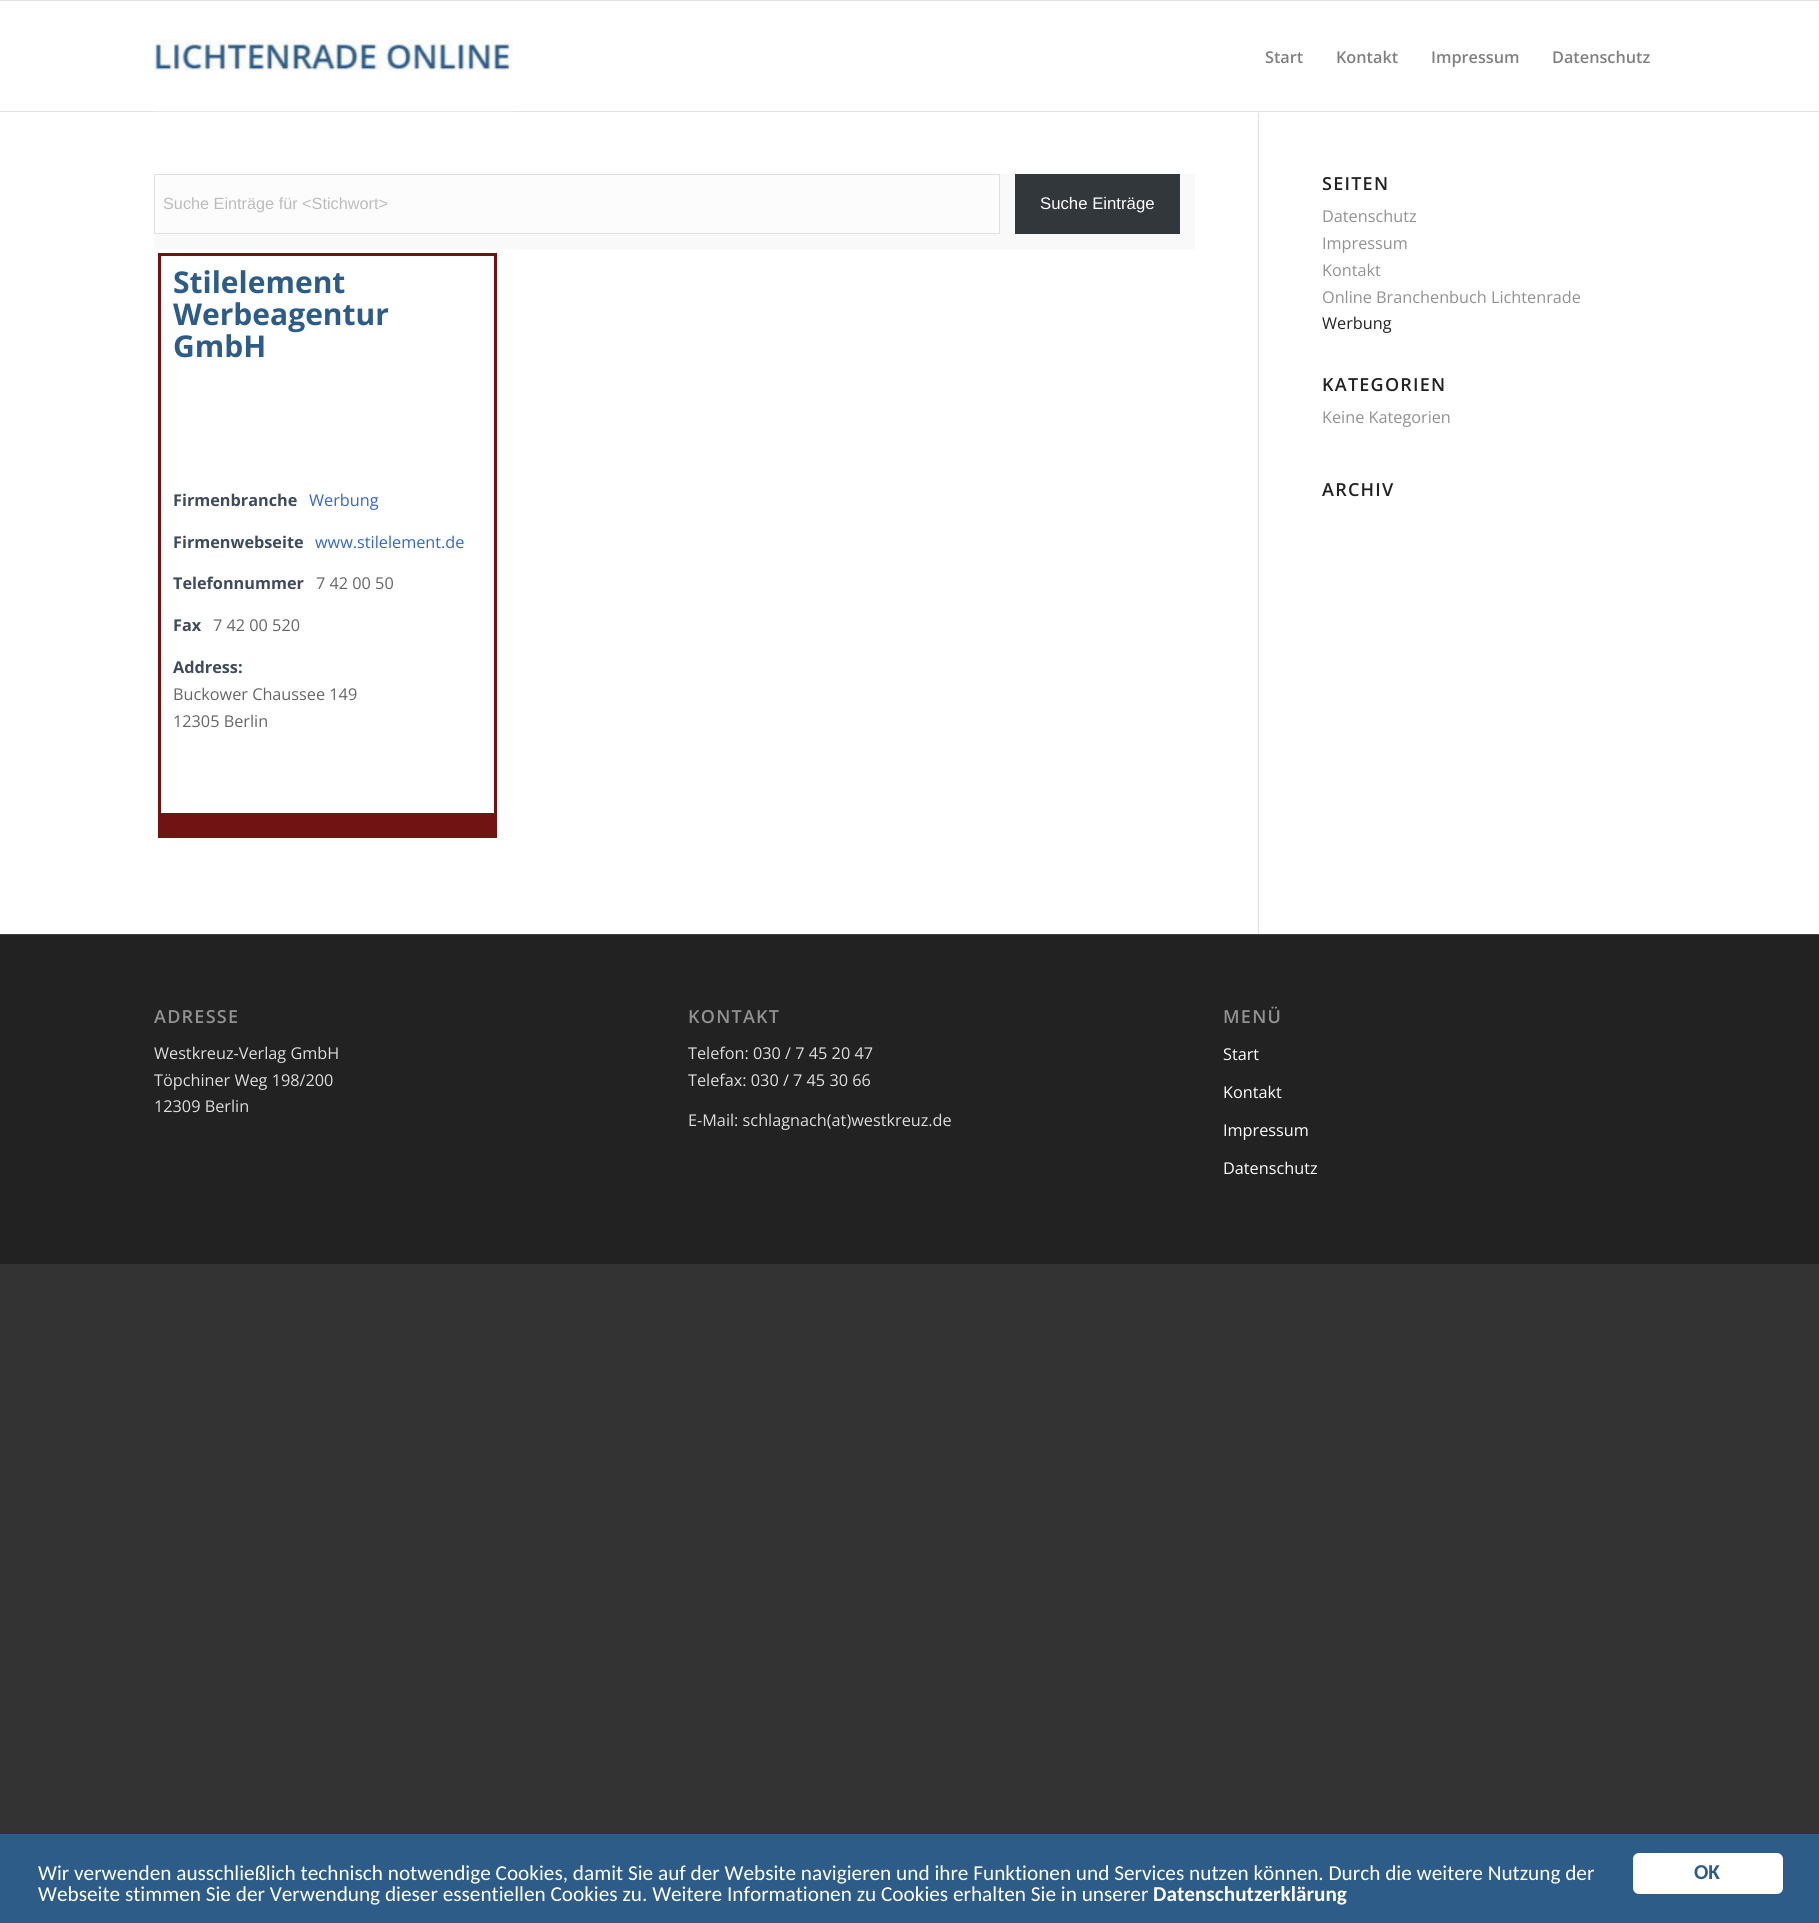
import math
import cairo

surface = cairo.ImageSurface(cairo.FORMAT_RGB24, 1819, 1923)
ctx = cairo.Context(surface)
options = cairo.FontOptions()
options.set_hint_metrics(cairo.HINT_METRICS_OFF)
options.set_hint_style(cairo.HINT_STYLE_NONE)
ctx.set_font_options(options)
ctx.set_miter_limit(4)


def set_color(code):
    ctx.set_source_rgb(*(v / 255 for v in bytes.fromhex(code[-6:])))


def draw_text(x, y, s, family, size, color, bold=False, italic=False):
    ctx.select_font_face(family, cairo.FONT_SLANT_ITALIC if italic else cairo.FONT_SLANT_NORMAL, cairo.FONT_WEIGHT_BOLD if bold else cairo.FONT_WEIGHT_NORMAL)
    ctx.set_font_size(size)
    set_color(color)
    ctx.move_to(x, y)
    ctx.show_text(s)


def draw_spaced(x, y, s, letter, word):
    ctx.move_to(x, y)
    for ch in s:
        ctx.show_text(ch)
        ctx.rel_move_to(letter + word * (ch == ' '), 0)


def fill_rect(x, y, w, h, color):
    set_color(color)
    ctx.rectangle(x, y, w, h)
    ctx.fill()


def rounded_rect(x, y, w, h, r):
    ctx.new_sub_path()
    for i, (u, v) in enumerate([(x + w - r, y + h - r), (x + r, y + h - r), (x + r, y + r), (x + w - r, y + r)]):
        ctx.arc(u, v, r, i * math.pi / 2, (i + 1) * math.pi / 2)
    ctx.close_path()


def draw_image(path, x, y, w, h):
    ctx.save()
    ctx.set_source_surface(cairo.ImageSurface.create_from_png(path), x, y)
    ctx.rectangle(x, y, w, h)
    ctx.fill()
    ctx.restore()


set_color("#333333")
ctx.paint()
fill_rect(0, 1, 1819, 933, "#ffffff")
fill_rect(0, 0, 1819, 1, "#e1e1e1")
fill_rect(1258, 111, 1, 823, "#e1e1e1")
fill_rect(1258, 111, 1, 2, "#fefefe")
fill_rect(0, 111, 1819, 1, "#e1e1e1")
draw_image("assets/img1.png", 153, 38, 360, 74)
draw_text(1265, 63, "Start", "Open Sans SemiBold", 16.25, "#808080")
draw_text(1336, 63, "Kontakt", "Open Sans SemiBold", 16.25, "#808080")
draw_text(1431, 63, "Impressum", "Open Sans SemiBold", 16.25, "#808080")
draw_text(1552, 63, "Datenschutz", "Open Sans SemiBold", 16.25, "#808080")
fill_rect(154, 174, 1041, 75, "#f9f9f9")
set_color("#fcfcfc")
ctx.rectangle(154.5, 174.5, 845, 59)
ctx.fill_preserve()
set_color("#e1e1e1")
ctx.set_line_width(1)
ctx.stroke()
draw_text(163, 209, "Suche Einträge für <Stichwort>", "Liberation Sans", 16.25, "#bcbcbc")
fill_rect(1015, 174, 165, 60, "#32373c")
draw_text(1040, 209, "Suche Einträge", "Liberation Sans", 16.75, "#ffffff")
fill_rect(158, 253, 338, 3, "#721313")
fill_rect(494, 253, 3, 585, "#721313")
fill_rect(161, 813, 333, 25, "#721313")
fill_rect(158, 253, 3, 585, "#721313")
draw_text(173, 293, "Stilelement", "Open Sans", 30, "#2d5c88", bold=True)
draw_text(173, 325, "Werbeagentur", "Open Sans", 30, "#2d5c88", bold=True)
draw_text(173, 357, "GmbH", "Open Sans", 30, "#2d5c88", bold=True)
draw_text(173, 506, "Firmenbranche", "Open Sans", 16.25, "#3f4b5b", bold=True)
draw_text(309, 506, "Werbung", "Open Sans", 16.25, "#3366cb")
draw_text(173, 548, "Firmenwebseite", "Open Sans", 16.25, "#3f4b5b", bold=True)
draw_text(315, 548, "www.stilelement.de", "Open Sans", 16.25, "#3366cb")
draw_text(173, 589, "Telefonnummer", "Open Sans", 16.25, "#3f4b5b", bold=True)
draw_text(316, 589, "7 42 00 50", "Open Sans", 16.25, "#666666")
draw_text(173, 631, "Fax", "Open Sans", 16.25, "#3f4b5b", bold=True)
draw_text(213, 631, "7 42 00 520", "Open Sans", 16.25, "#666666")
draw_text(173, 673, "Address:", "Open Sans", 16.25, "#3f4b5b", bold=True)
draw_text(173, 700, "Buckower Chaussee 149", "Open Sans", 16.25, "#666666")
draw_text(173, 727, "12305 Berlin", "Open Sans", 16.25, "#666666")
ctx.select_font_face("Open Sans SemiBold")
ctx.set_font_size(18)
set_color("#222222")
draw_spaced(1322, 190, "SEITEN", 1.25, 0)
draw_text(1322, 222, "Datenschutz", "Open Sans", 16.25, "#919191")
draw_text(1322, 249, "Impressum", "Open Sans", 16.25, "#919191")
draw_text(1322, 276, "Kontakt", "Open Sans", 16.25, "#919191")
draw_text(1322, 303, "Online Branchenbuch Lichtenrade", "Open Sans", 16.25, "#919191")
draw_text(1322, 329, "Werbung", "Open Sans", 16.25, "#222222")
ctx.select_font_face("Open Sans SemiBold")
ctx.set_font_size(18)
draw_spaced(1322, 391, "KATEGORIEN", 1.25, 0)
draw_text(1322, 423, "Keine Kategorien", "Open Sans", 16.25, "#919191")
ctx.select_font_face("Open Sans SemiBold")
ctx.set_font_size(18)
set_color("#222222")
draw_spaced(1322, 496, "ARCHIV", 1.25, 0)
fill_rect(0, 935, 1819, 329, "#222222")
fill_rect(0, 934, 1819, 1, "#444444")
set_color("#919191")
draw_spaced(154, 1023, "ADRESSE", 1.25, 0)
draw_text(154, 1059, "Westkreuz-Verlag GmbH", "Open Sans", 16.25, "#dddddd")
draw_text(154, 1086, "Töpchiner Weg 198/200", "Open Sans", 16.25, "#dddddd")
draw_text(154, 1112, "12309 Berlin", "Open Sans", 16.25, "#dddddd")
ctx.select_font_face("Open Sans SemiBold")
ctx.set_font_size(18)
set_color("#919191")
draw_spaced(688, 1023, "KONTAKT", 1.25, 0)
draw_text(688, 1059, "Telefon: 030 / 7 45 20 47", "Open Sans", 16.25, "#dddddd")
draw_text(688, 1086, "Telefax: 030 / 7 45 30 66", "Open Sans", 16.25, "#dddddd")
draw_text(688, 1126, "E-Mail: schlagnach(at)westkreuz.de", "Open Sans", 16.25, "#dddddd")
ctx.select_font_face("Open Sans SemiBold")
ctx.set_font_size(18)
set_color("#919191")
draw_spaced(1223, 1023, "MENÜ", 1.25, 0)
draw_text(1223, 1060, "Start", "Open Sans", 16.25, "#ffffff")
draw_text(1223, 1098, "Kontakt", "Open Sans", 16.25, "#ffffff")
draw_text(1223, 1136, "Impressum", "Open Sans", 16.25, "#ffffff")
draw_text(1223, 1174, "Datenschutz", "Open Sans", 16.25, "#ffffff")
fill_rect(0, 1834, 1819, 89, "#2d5c88")
draw_text(38, 1880, "Wir verwenden ausschließlich technisch notwendige Cookies, damit Sie auf der Website navigieren und ihre Funktionen und Services nutzen können. Durch die weitere Nutzung der", "Carlito", 21.25, "#ffffff")
draw_text(38, 1901, "Webseite stimmen Sie der Verwendung dieser essentiellen Cookies zu. Weitere Informationen zu Cookies erhalten Sie in unserer", "Carlito", 21.25, "#ffffff")
draw_text(1153, 1901, "Datenschutzerklärung", "Carlito", 21.25, "#ffffff", bold=True)
rounded_rect(1633, 1853, 150, 41, 6)
ctx.fill()
draw_text(1694, 1879, "OK", "Carlito", 21.25, "#2d5c88", bold=True)
surface.write_to_png("output.png")
